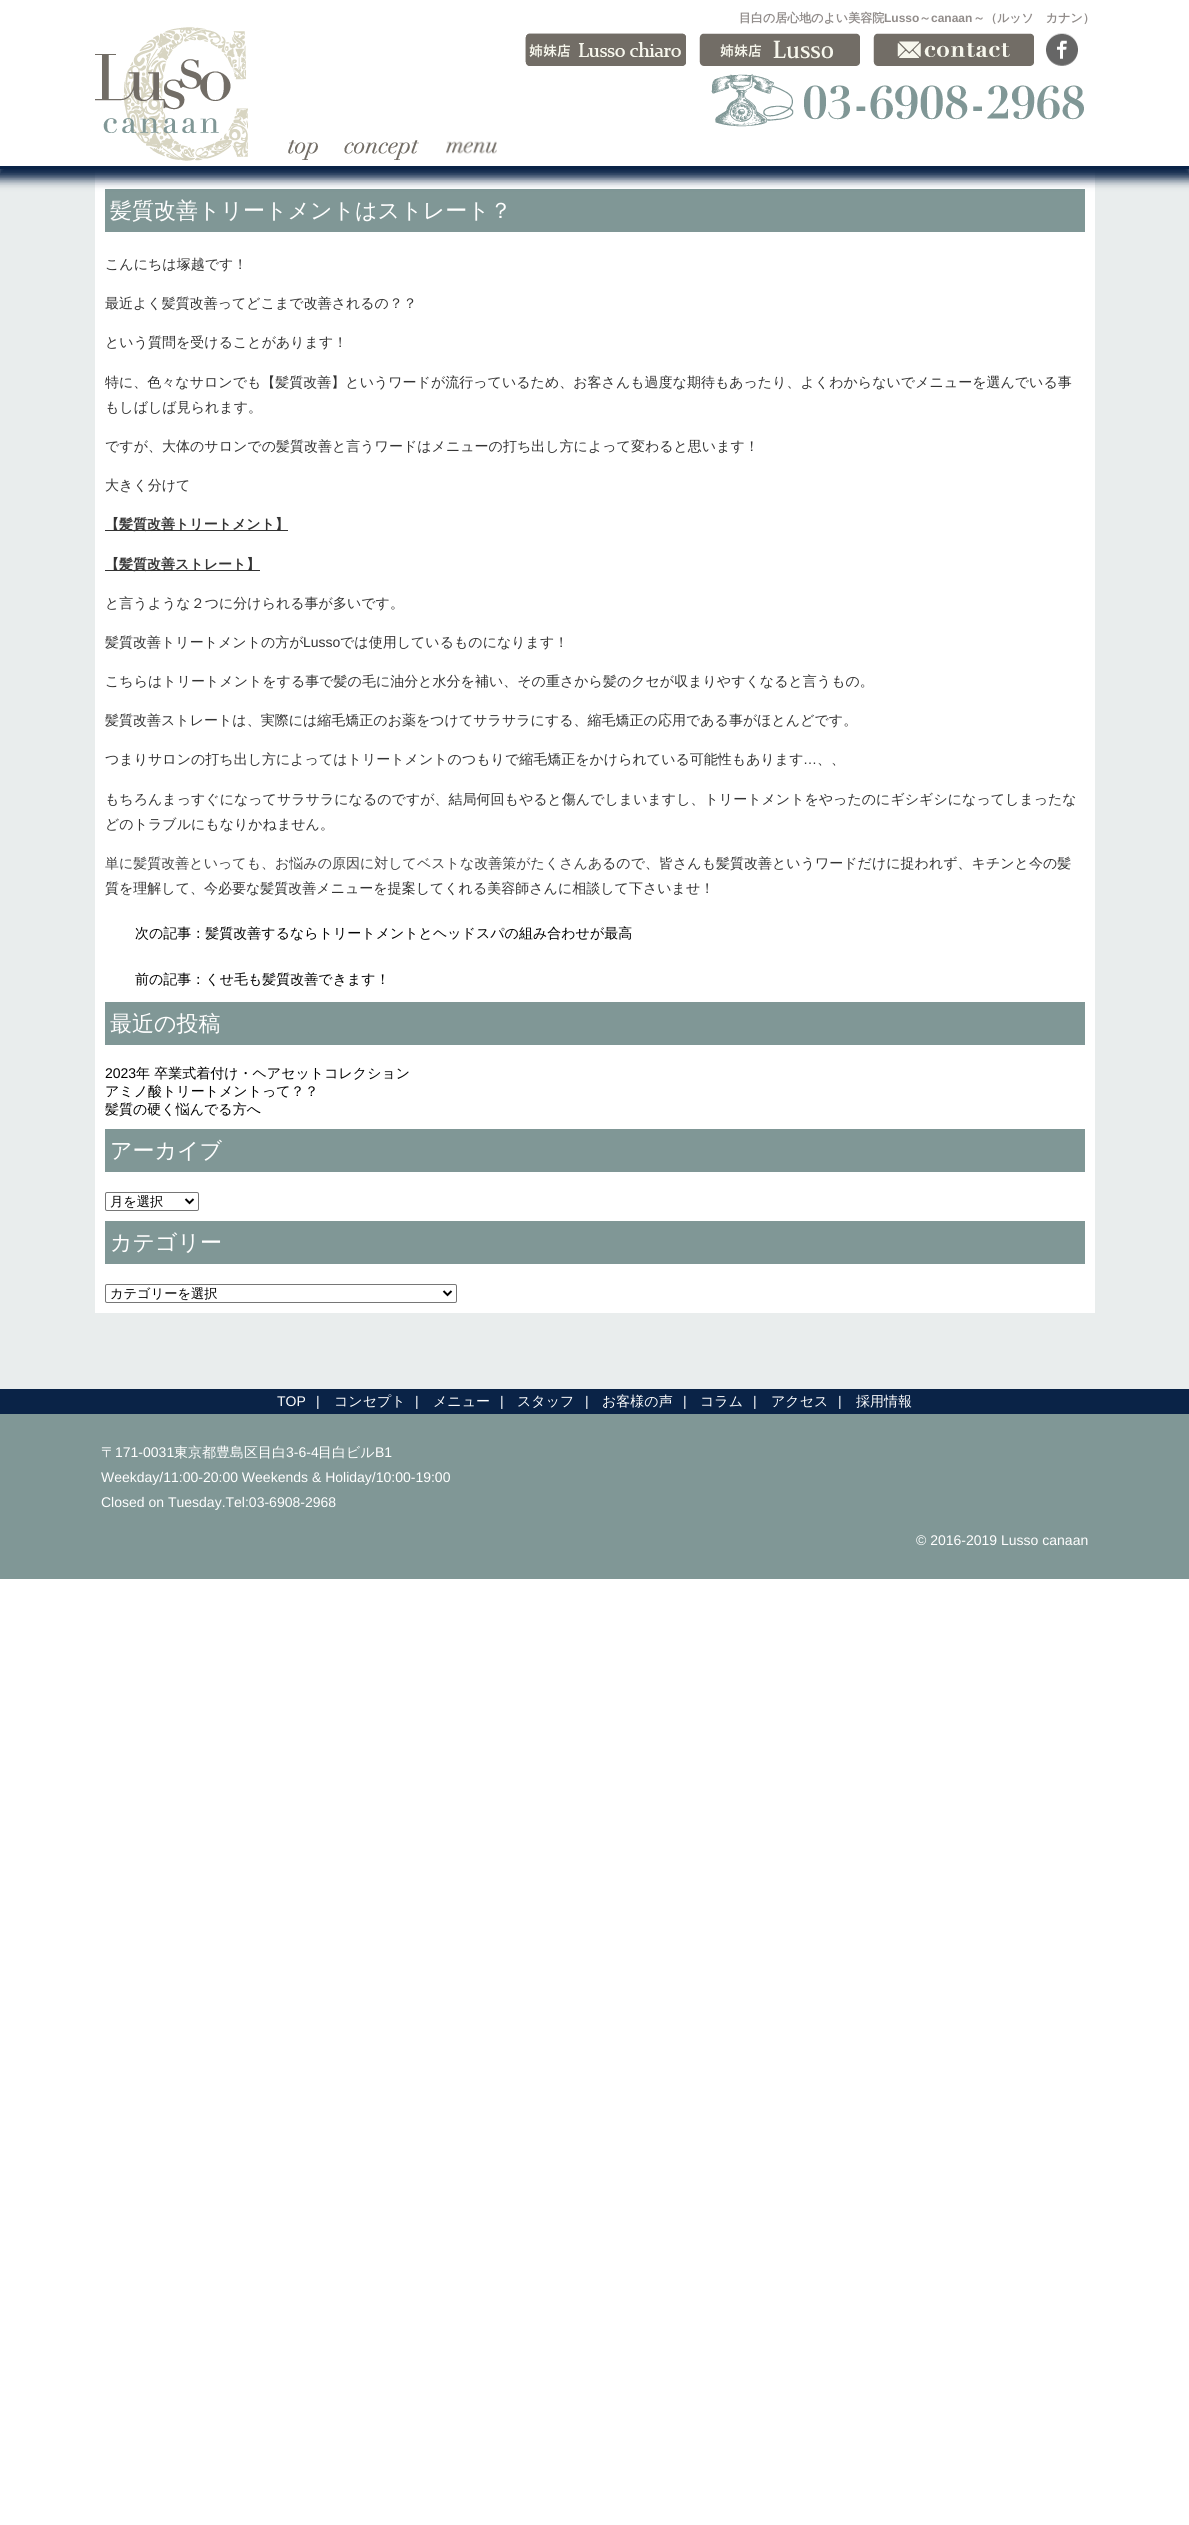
import math
import cairo

surface = cairo.ImageSurface(cairo.FORMAT_RGB24, 1189, 2525)
ctx = cairo.Context(surface)
options = cairo.FontOptions()
options.set_hint_metrics(cairo.HINT_METRICS_OFF)
options.set_hint_style(cairo.HINT_STYLE_NONE)
ctx.set_font_options(options)
ctx.set_miter_limit(4)


def set_color(code):
    ctx.set_source_rgb(*(v / 255 for v in bytes.fromhex(code[-6:])))


def draw_text(x, y, s, family, size, color, bold=False, italic=False):
    ctx.select_font_face(family, cairo.FONT_SLANT_ITALIC if italic else cairo.FONT_SLANT_NORMAL, cairo.FONT_WEIGHT_BOLD if bold else cairo.FONT_WEIGHT_NORMAL)
    ctx.set_font_size(size)
    set_color(color)
    ctx.move_to(x, y)
    ctx.show_text(s)


def fill_rect(x, y, w, h, color):
    set_color(color)
    ctx.rectangle(x, y, w, h)
    ctx.fill()


def rounded_rect(x, y, w, h, r):
    ctx.new_sub_path()
    for i, (u, v) in enumerate([(x + w - r, y + h - r), (x + r, y + h - r), (x + r, y + r), (x + w - r, y + r)]):
        ctx.arc(u, v, r, i * math.pi / 2, (i + 1) * math.pi / 2)
    ctx.close_path()


def draw_shadow(x, y, w, h, r, blur, alpha):
    ctx.push_group_with_content(cairo.CONTENT_ALPHA)
    ctx.set_operator(cairo.OPERATOR_SOURCE)
    for i in range(15, -16, -2):
        e = blur * i / 6
        if min(w, h) + 2 * e > 0:
            ctx.set_source_rgba(0, 0, 0, alpha * math.erfc((i - 1) / 8.5) / 2)
            rounded_rect(x - e, y - e, w + 2 * e, h + 2 * e, max(0, min(r + e + blur * .6, min(w, h) / 2 + e)))
            ctx.fill()
    ctx.mask(ctx.pop_group())


def draw_image(path, x, y, w, h):
    ctx.save()
    ctx.set_source_surface(cairo.ImageSurface.create_from_png(path), x, y)
    ctx.rectangle(x, y, w, h)
    ctx.fill()
    ctx.restore()


set_color("#ffffff")
ctx.paint()
fill_rect(0, 169, 1189, 1220, "#e9eded")
fill_rect(95, 169, 1000, 1144, "#ffffff")
fill_rect(105, 189, 980, 43, "#809796")
set_color("#0a2347")
draw_shadow(-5, 0, 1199, 179, 0, 5, 1)
fill_rect(0, 0, 1189, 166, "#ffffff")
fill_rect(0, 166, 1189, 3, "#0a2347")
draw_text(739, 22, "目白の居心地のよい美容院", "WenQuanYi Zen Hei", 12, "#918c8a", bold=True)
draw_text(884, 22, "Lusso", "Liberation Sans", 12, "#918c8a", bold=True)
draw_text(919, 22, "～", "WenQuanYi Zen Hei", 12, "#918c8a", bold=True)
draw_text(931, 22, "canaan", "Liberation Sans", 12, "#918c8a", bold=True)
draw_text(973, 22, "～（ルッソ　カナン）", "WenQuanYi Zen Hei", 12, "#918c8a", bold=True)
draw_image("assets/img1.png", 95, 27, 153, 134)
draw_image("assets/img2.png", 525, 33, 161, 33)
draw_image("assets/img3.png", 699, 33, 161, 33)
draw_image("assets/img4.png", 873, 33, 161, 33)
draw_image("assets/img5.png", 1046, 33, 32, 33)
draw_image("assets/img6.png", 711, 74, 373, 53)
draw_image("assets/img7.png", 288, 140, 30, 20)
draw_image("assets/img8.png", 344, 140, 75, 20)
draw_image("assets/img9.png", 446, 141, 51, 13)
draw_text(110, 218, "髪質改善トリートメントはストレート？", "WenQuanYi Zen Hei Medium", 22, "#ffffff")
draw_text(105, 269, "こんにちは塚越です！", "WenQuanYi Zen Hei Medium", 14, "#333333")
draw_text(105, 308, "最近よく髪質改善ってどこまで改善されるの？？", "WenQuanYi Zen Hei Medium", 14, "#333333")
draw_text(105, 347, "という質問を受けることがあります！", "WenQuanYi Zen Hei Medium", 14, "#333333")
draw_text(105, 387, "特に、色々なサロンでも【髪質改善】というワードが流行っているため、お客さんも過度な期待もあったり、よくわからないでメニューを選んでいる事", "WenQuanYi Zen Hei Medium", 14, "#333333")
draw_text(105, 412, "もしばしば見られます。", "WenQuanYi Zen Hei Medium", 14, "#333333")
draw_text(105, 451, "ですが、大体のサロンでの髪質改善と言うワードはメニューの打ち出し方によって変わると思います！", "WenQuanYi Zen Hei Medium", 14, "#333333")
draw_text(105, 490, "大きく分けて", "WenQuanYi Zen Hei Medium", 14, "#333333")
fill_rect(105, 530, 183, 1, "#333333")
draw_text(105, 529, "【髪質改善トリートメント】", "WenQuanYi Zen Hei", 14, "#333333", bold=True)
fill_rect(105, 570, 155, 1, "#333333")
draw_text(105, 569, "【髪質改善ストレート】", "WenQuanYi Zen Hei", 14, "#333333", bold=True)
draw_text(105, 608, "と言うような２つに分けられる事が多いです。", "WenQuanYi Zen Hei Medium", 14, "#333333")
draw_text(105, 647, "髪質改善トリートメントの方が", "WenQuanYi Zen Hei Medium", 14, "#333333")
draw_text(303, 647, "Lusso", "Liberation Sans", 14, "#333333")
draw_text(340, 647, "では使用しているものになります！", "WenQuanYi Zen Hei Medium", 14, "#333333")
draw_text(105, 686, "こちらはトリートメントをする事で髪の毛に油分と水分を補い、その重さから髪のクセが収まりやすくなると言うもの。", "WenQuanYi Zen Hei Medium", 14, "#333333")
draw_text(105, 725, "髪質改善ストレートは、実際には縮毛矯正のお薬をつけてサラサラにする、縮毛矯正の応用である事がほとんどです。", "WenQuanYi Zen Hei Medium", 14, "#333333")
draw_text(105, 764, "つまりサロンの打ち出し方によってはトリートメントのつもりで縮毛矯正をかけられている可能性もあります", "WenQuanYi Zen Hei Medium", 14, "#333333")
draw_text(803, 764, "…", "Liberation Sans", 14, "#333333")
draw_text(817, 764, "、、", "WenQuanYi Zen Hei Medium", 14, "#333333")
draw_text(105, 804, "もちろんまっすぐになってサラサラになるのですが、結局何回もやると傷んでしまいますし、トリートメントをやったのにギシギシになってしまったな", "WenQuanYi Zen Hei Medium", 14, "#333333")
draw_text(105, 829, "どのトラブルにもなりかねません。", "WenQuanYi Zen Hei Medium", 14, "#333333")
draw_text(105, 868, "単に髪質改善といっても、お悩みの原因に対してベストな改善策がたくさんあ", "WenQuanYi Zen Hei Medium", 14, "#444444")
draw_text(602, 868, "るので、皆さんも髪質改善というワードだけに捉われず、キチンと今の髪", "WenQuanYi Zen Hei Medium", 14, "#333333")
draw_text(105, 893, "質を理解して、今必要な髪質改善メニューを提案してくれる美容師さんに相談して下さいませ！", "WenQuanYi Zen Hei Medium", 14, "#333333")
draw_text(135, 938, "次の記事：髪質改善するならトリートメントとヘッドスパの組み合わせが最高", "WenQuanYi Zen Hei Medium", 14, "#000000")
draw_text(135, 984, "前の記事：くせ毛も髪質改善できます！", "WenQuanYi Zen Hei Medium", 14, "#000000")
fill_rect(105, 1002, 980, 43, "#809796")
draw_text(110, 1031, "最近の投稿", "WenQuanYi Zen Hei Medium", 22, "#ffffff")
draw_text(105, 1078, "2023", "Liberation Sans", 14, "#000000")
draw_text(136, 1078, "年 卒業式着付け・ヘアセットコレクション", "WenQuanYi Zen Hei Medium", 14, "#000000")
draw_text(105, 1096, "アミノ酸トリートメントって？？", "WenQuanYi Zen Hei Medium", 14, "#000000")
draw_text(105, 1114, "髪質の硬く悩んでる方へ", "WenQuanYi Zen Hei Medium", 14, "#000000")
fill_rect(105, 1129, 980, 43, "#809796")
draw_text(110, 1158, "アーカイブ", "WenQuanYi Zen Hei Medium", 22, "#ffffff")
rounded_rect(105.5, 1192.5, 93, 18, 1.5)
set_color("#767676")
ctx.set_line_width(1)
ctx.stroke()
ctx.new_path()
ctx.move_to(185.5, 1199)
ctx.line_to(189.5, 1203)
ctx.line_to(193.5, 1199)
set_color("#000000")
ctx.set_line_width(2)
ctx.stroke()
draw_text(110, 1206, "月を選択", "WenQuanYi Zen Hei Medium", 13.25, "#000000")
fill_rect(105, 1221, 980, 43, "#809796")
draw_text(110, 1250, "カテゴリー", "WenQuanYi Zen Hei Medium", 22, "#ffffff")
rounded_rect(105.5, 1284.5, 351, 18, 1.5)
set_color("#767676")
ctx.set_line_width(1)
ctx.stroke()
ctx.new_path()
ctx.move_to(443.5, 1291)
ctx.line_to(447.5, 1295)
ctx.line_to(451.5, 1291)
set_color("#000000")
ctx.set_line_width(2)
ctx.stroke()
draw_text(110, 1298, "カテゴリーを選択", "WenQuanYi Zen Hei Medium", 13.25, "#000000")
fill_rect(0, 1389, 1189, 25, "#0a2347")
draw_text(277, 1406, "TOP", "Liberation Sans", 14, "#ffffff")
draw_text(316, 1406, "|", "Liberation Sans", 14, "#ffffff")
draw_text(334, 1406, "コンセプト", "WenQuanYi Zen Hei Medium", 14, "#ffffff")
draw_text(415, 1406, "|", "Liberation Sans", 14, "#ffffff")
draw_text(433, 1406, "メニュー", "WenQuanYi Zen Hei Medium", 14, "#ffffff")
draw_text(500, 1406, "|", "Liberation Sans", 14, "#ffffff")
draw_text(517, 1406, "スタッフ", "WenQuanYi Zen Hei Medium", 14, "#ffffff")
draw_text(585, 1406, "|", "Liberation Sans", 14, "#ffffff")
draw_text(602, 1406, "お客様の声", "WenQuanYi Zen Hei Medium", 14, "#ffffff")
draw_text(683, 1406, "|", "Liberation Sans", 14, "#ffffff")
draw_text(700, 1406, "コラム", "WenQuanYi Zen Hei Medium", 14, "#ffffff")
draw_text(753, 1406, "|", "Liberation Sans", 14, "#ffffff")
draw_text(771, 1406, "アクセス", "WenQuanYi Zen Hei Medium", 14, "#ffffff")
draw_text(838, 1406, "|", "Liberation Sans", 14, "#ffffff")
draw_text(856, 1406, "採用情報", "WenQuanYi Zen Hei Medium", 14, "#ffffff")
fill_rect(0, 1414, 1189, 165, "#809796")
draw_text(101, 1457, "〒", "WenQuanYi Zen Hei Medium", 14, "#ffffff")
draw_text(115, 1457, "171-0031", "Liberation Sans", 14, "#ffffff")
draw_text(174, 1457, "東京都豊島区目白", "WenQuanYi Zen Hei Medium", 14, "#ffffff")
draw_text(286, 1457, "3-6-4", "Liberation Sans", 14, "#ffffff")
draw_text(318, 1457, "目白ビル", "WenQuanYi Zen Hei Medium", 14, "#ffffff")
draw_text(375, 1457, "B1", "Liberation Sans", 14, "#ffffff")
draw_text(101, 1482, "Weekday/11:00-20:00 Weekends & Holiday/10:00-19:00", "Liberation Sans", 14, "#ffffff")
draw_text(101, 1507, "Closed on Tuesday.Tel:03-6908-2968", "Liberation Sans", 14, "#ffffff")
draw_text(916, 1545, "© 2016-2019 Lusso canaan", "Liberation Sans", 14, "#ffffff")
surface.write_to_png("output.png")
